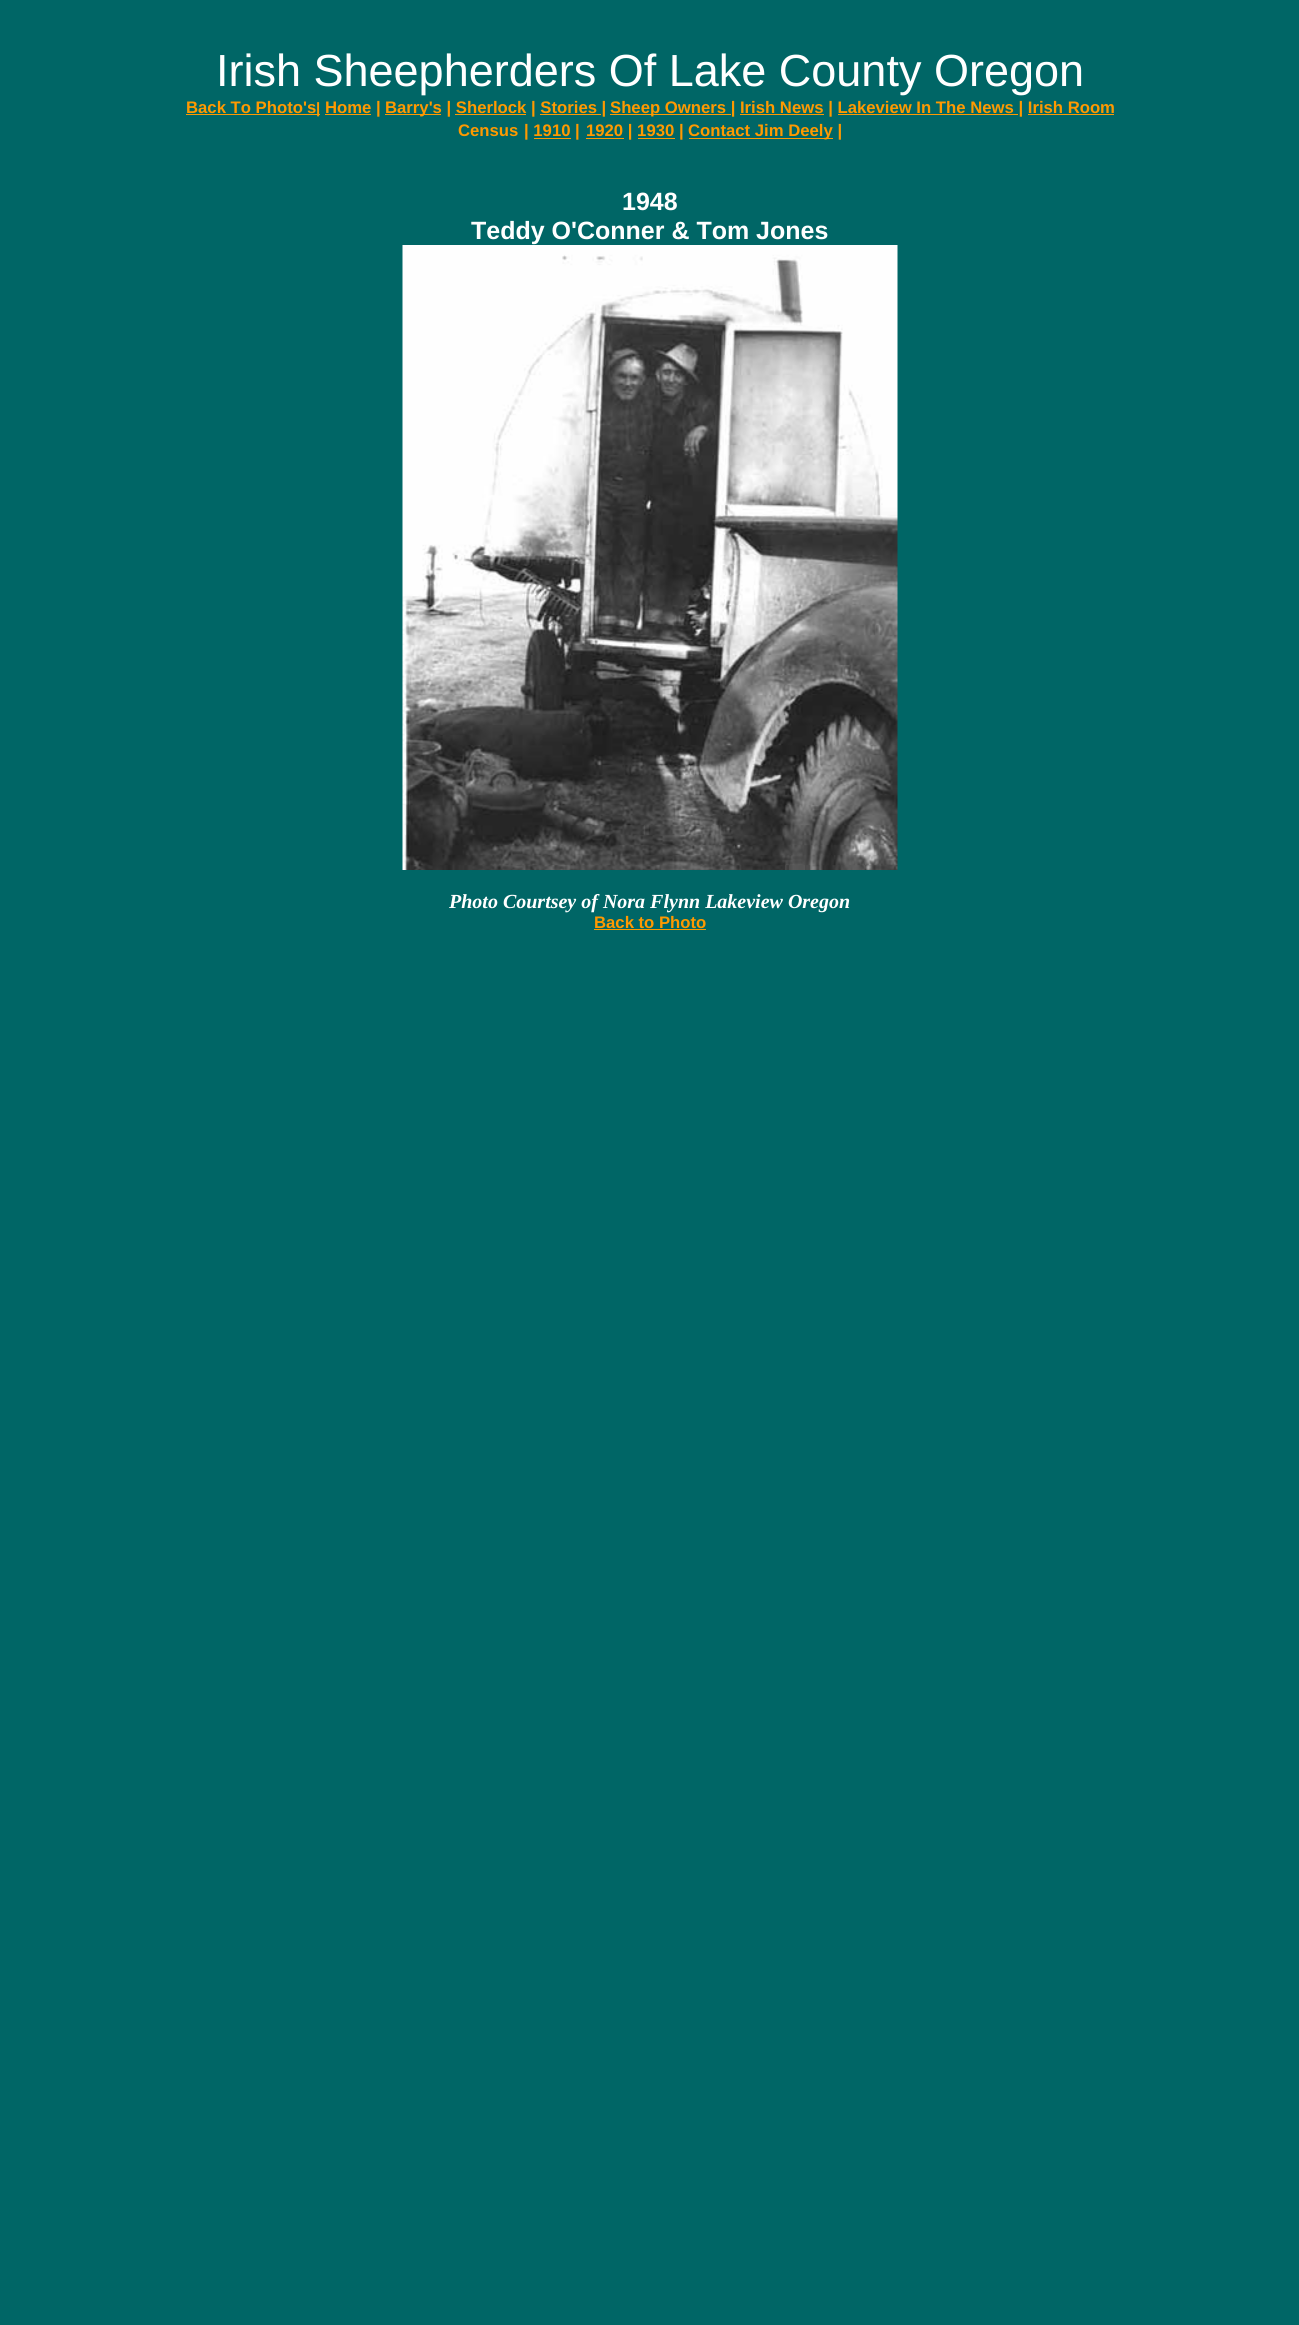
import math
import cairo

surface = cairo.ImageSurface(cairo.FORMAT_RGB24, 1299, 2325)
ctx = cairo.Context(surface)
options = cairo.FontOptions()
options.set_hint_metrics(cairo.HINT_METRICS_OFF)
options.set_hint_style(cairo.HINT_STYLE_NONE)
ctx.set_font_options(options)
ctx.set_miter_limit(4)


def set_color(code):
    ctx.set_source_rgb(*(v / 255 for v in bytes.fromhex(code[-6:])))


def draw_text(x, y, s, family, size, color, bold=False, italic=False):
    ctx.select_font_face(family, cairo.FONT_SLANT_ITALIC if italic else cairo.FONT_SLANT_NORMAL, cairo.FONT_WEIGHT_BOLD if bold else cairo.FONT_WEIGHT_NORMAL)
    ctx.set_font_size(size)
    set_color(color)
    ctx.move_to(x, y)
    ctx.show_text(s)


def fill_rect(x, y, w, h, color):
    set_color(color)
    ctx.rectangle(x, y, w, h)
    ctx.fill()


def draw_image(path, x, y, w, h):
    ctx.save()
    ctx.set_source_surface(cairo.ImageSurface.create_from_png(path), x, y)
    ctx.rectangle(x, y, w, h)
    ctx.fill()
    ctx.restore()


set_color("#006666")
ctx.paint()
draw_text(216, 86, "Irish Sheepherders Of Lake County Oregon", "Liberation Sans", 45, "#ffffff")
draw_text(186, 113, "Back To Photo's", "Liberation Sans", 16.7, "#ff9900", bold=True)
fill_rect(186, 114, 134, 1, "#ff9900")
draw_text(316, 113, "|", "Liberation Sans", 15, "#ff9900", bold=True)
fill_rect(325, 114, 46, 1, "#ff9900")
draw_text(325, 113, "Home |", "Liberation Sans", 16.7, "#ff9900", bold=True)
fill_rect(385, 114, 56, 1, "#ff9900")
draw_text(385, 113, "Barry's | Sherlock | Stories |", "Liberation Sans", 16.7, "#ff9900", bold=True)
fill_rect(455, 114, 71, 1, "#ff9900")
fill_rect(540, 114, 61, 1, "#ff9900")
fill_rect(610, 114, 121, 1, "#ff9900")
draw_text(610, 113, "Sheep Owners | Irish News | Lakeview In The News | Irish Room", "Liberation Sans", 16.7, "#ff9900", bold=True)
fill_rect(740, 114, 84, 1, "#ff9900")
fill_rect(838, 114, 180, 1, "#ff9900")
fill_rect(1028, 114, 86, 1, "#ff9900")
draw_text(458, 136, "Census", "Liberation Sans", 16.7, "#ff9900", bold=True)
draw_text(524, 136, "| 1910 |", "Liberation Sans", 16.7, "#ff9900", bold=True)
fill_rect(534, 138, 37, 1, "#ff9900")
fill_rect(586, 138, 38, 1, "#ff9900")
draw_text(586, 136, "1920 | 1930 |", "Liberation Sans", 16.7, "#ff9900", bold=True)
fill_rect(638, 138, 37, 1, "#ff9900")
fill_rect(689, 138, 144, 1, "#ff9900")
draw_text(688, 136, "Contact Jim Deely |", "Liberation Sans", 16.7, "#ff9900", bold=True)
draw_text(622, 210, "1948", "Liberation Sans", 25, "#ffffff", bold=True)
draw_text(471, 239, "Teddy O'Conner & Tom Jones", "Liberation Sans", 25, "#ffffff", bold=True)
draw_image("assets/img1.png", 402, 245, 496, 625)
draw_text(449, 908, "Photo Courtsey of Nora Flynn Lakeview Oregon", "Liberation Serif", 20, "#ffffff", bold=True, italic=True)
draw_text(594, 928, "Back to Photo", "Liberation Sans", 16.7, "#ff9900", bold=True)
fill_rect(594, 929, 112, 1, "#ff9900")
surface.write_to_png("output.png")
